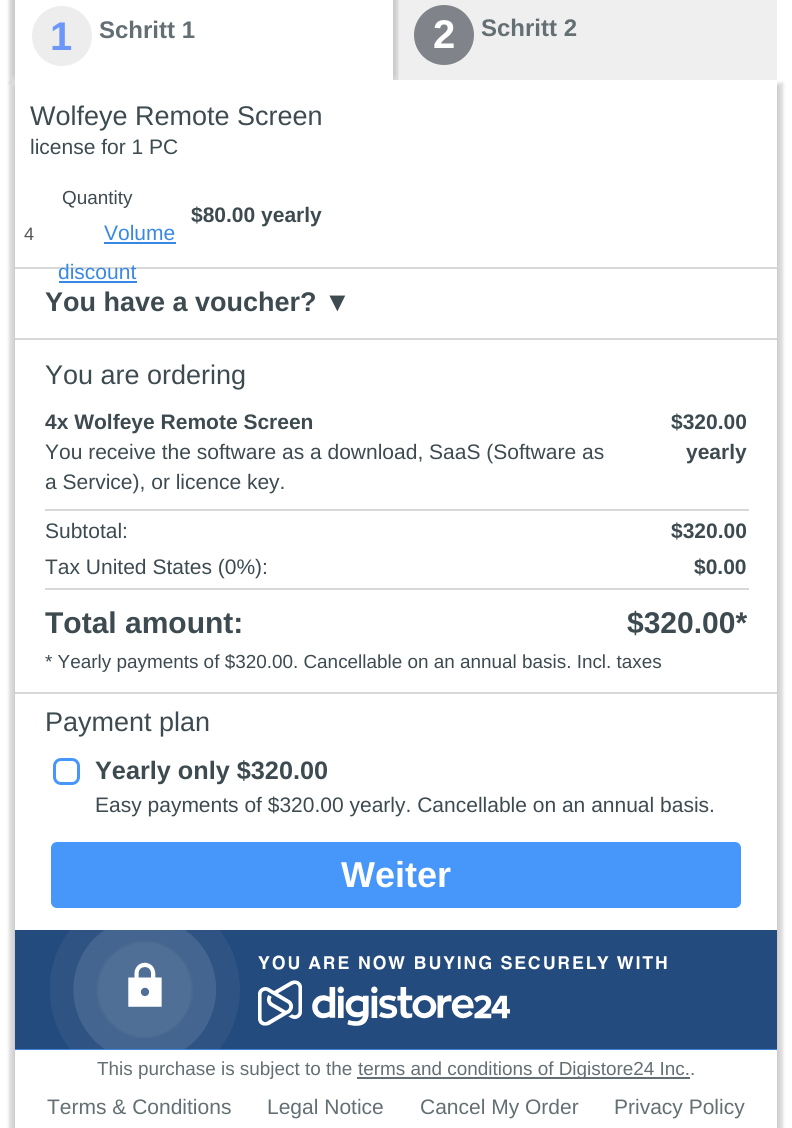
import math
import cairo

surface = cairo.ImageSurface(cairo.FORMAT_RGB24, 792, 1128)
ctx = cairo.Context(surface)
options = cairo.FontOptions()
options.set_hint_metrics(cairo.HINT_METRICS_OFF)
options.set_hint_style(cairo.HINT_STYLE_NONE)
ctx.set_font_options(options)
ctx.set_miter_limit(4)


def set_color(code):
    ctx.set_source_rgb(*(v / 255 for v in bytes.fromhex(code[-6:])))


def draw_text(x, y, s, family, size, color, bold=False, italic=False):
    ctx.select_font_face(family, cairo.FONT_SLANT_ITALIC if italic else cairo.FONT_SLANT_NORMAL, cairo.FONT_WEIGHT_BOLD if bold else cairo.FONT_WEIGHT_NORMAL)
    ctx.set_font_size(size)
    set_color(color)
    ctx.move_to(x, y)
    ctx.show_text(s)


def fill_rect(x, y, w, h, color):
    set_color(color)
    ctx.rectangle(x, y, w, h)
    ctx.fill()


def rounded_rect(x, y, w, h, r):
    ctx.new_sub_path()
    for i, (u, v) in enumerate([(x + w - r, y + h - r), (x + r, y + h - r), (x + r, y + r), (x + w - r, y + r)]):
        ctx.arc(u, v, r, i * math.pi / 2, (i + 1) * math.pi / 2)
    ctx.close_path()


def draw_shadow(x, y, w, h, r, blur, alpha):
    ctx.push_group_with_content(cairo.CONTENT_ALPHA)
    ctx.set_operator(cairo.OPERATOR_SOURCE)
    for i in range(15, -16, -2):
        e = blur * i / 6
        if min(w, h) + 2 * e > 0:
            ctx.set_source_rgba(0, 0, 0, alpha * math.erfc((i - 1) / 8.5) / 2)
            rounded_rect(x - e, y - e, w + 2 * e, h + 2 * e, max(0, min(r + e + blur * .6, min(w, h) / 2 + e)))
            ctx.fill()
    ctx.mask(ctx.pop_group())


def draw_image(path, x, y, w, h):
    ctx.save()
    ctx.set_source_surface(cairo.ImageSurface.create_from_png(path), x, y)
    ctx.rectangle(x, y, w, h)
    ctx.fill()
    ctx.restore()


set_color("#ffffff")
ctx.paint()
set_color("#000000")
draw_shadow(9, -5, 378, 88, 0, 1.5, 0.15)
draw_shadow(21, -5, 378, 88, 0, 1.5, 0.15)
draw_shadow(15, -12, 378, 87, 0, 4, 0.15)
fill_rect(15, 0, 378, 80, "#ffffff")
set_color("#ededed")
ctx.arc(62, 36, 30, 0, 2 * math.pi)
ctx.fill()
draw_text(50, 50, "1", "Liberation Sans", 40, "#6c96f8", bold=True)
draw_text(99, 38, "Schritt 1", "Liberation Sans", 24, "#636f73", bold=True)
fill_rect(400, 0, 377, 80, "#efefef")
set_color("#80848a")
ctx.new_path()
ctx.arc(444, 35, 30, 0, 2 * math.pi)
ctx.fill()
draw_text(433, 48, "2", "Liberation Sans", 40, "#ffffff", bold=True)
draw_text(481, 36, "Schritt 2", "Liberation Sans", 24, "#636f73", bold=True)
set_color("#000000")
draw_shadow(9, 83, 762, 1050, 0, 1.5, 0.15)
draw_shadow(21, 83, 762, 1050, 0, 1.5, 0.15)
draw_shadow(15, 86, 762, 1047, 0, 1.5, 0.15)
fill_rect(15, 80, 762, 1048, "#ffffff")
fill_rect(777, 266, 2, 2, "#d8d8d8")
draw_text(30, 125, "Wolfeye Remote Screen", "Liberation Sans", 27, "#3d4b51")
draw_text(30, 154, "license for 1 PC", "Liberation Sans", 21, "#3d4b51")
draw_text(62, 204, "Quantity", "Liberation Sans", 18.9, "#3d4b51")
draw_text(24, 240, "4", "Liberation Sans", 18, "#555555")
draw_text(104, 240, "Volume", "Liberation Sans", 21, "#3988e3")
fill_rect(104, 242, 72, 2, "#3988e3")
fill_rect(15, 267, 762, 2, "#d8d8d8")
draw_text(58, 279, "discount", "Liberation Sans", 21, "#3988e3")
fill_rect(59, 281, 78, 2, "#3988e3")
draw_text(191, 222, "$80.00 yearly", "Liberation Sans", 21, "#3d4b51", bold=True)
draw_text(45, 311, "You have a voucher? ▼", "Liberation Sans", 27, "#3d4b51", bold=True)
fill_rect(15, 338, 762, 2, "#d8d8d8")
draw_text(45, 384, "You are ordering", "Liberation Sans", 27, "#3d4b51")
draw_text(45, 429, "4x Wolfeye Remote Screen", "Liberation Sans", 21, "#3d4b51", bold=True)
draw_text(45, 459, "You receive the software as a download, SaaS (Software as", "Liberation Sans", 21, "#3d4b51")
draw_text(45, 489, "a Service), or licence key.", "Liberation Sans", 21, "#3d4b51")
draw_text(671, 429, "$320.00", "Liberation Sans", 21, "#3d4b51", bold=True)
draw_text(686, 459, "yearly", "Liberation Sans", 21, "#3d4b51", bold=True)
draw_text(45, 538, "Subtotal:", "Liberation Sans", 21, "#3d4b51")
fill_rect(45, 509, 704, 2, "#d8d8d8")
draw_text(671, 538, "$320.00", "Liberation Sans", 21, "#3d4b51", bold=True)
draw_text(45, 574, "Tax United States (0%):", "Liberation Sans", 21, "#3d4b51")
draw_text(694, 574, "$0.00", "Liberation Sans", 21, "#3d4b51", bold=True)
draw_text(45, 633, "Total amount:", "Liberation Sans", 30, "#3d4b51", bold=True)
fill_rect(45, 588, 704, 2, "#d8d8d8")
draw_text(627, 633, "$320.00*", "Liberation Sans", 30, "#3d4b51", bold=True)
draw_text(45, 668, "* Yearly payments of $320.00. Cancellable on an annual basis. Incl. taxes", "Liberation Sans", 18.9, "#3d4b51")
fill_rect(15, 692, 762, 2, "#d8d8d8")
draw_text(45, 731, "Payment plan", "Liberation Sans", 27, "#3d4b51")
rounded_rect(54.5, 759.5, 24, 24, 6.5)
set_color("#4796fa")
ctx.set_line_width(3)
ctx.stroke()
draw_text(95, 779, "Yearly only $320.00", "Liberation Sans", 25.25, "#3d4b51", bold=True)
draw_text(95, 812, "Easy payments of $320.00 yearly. Cancellable on an annual basis.", "Liberation Sans", 21, "#3d4b51")
set_color("#4796fa")
rounded_rect(51, 842, 690, 66, 6)
ctx.fill()
draw_text(341, 887, "Weiter", "Liberation Sans", 36, "#ffffff", bold=True)
fill_rect(15, 930, 762, 120, "#4796fa")
draw_image("assets/img1.png", 15, 930, 762, 120)
draw_text(97, 1075, "This purchase is subject to the", "Liberation Sans", 18.9, "#636f73")
fill_rect(357, 1077, 333, 2, "#646f74")
draw_text(358, 1075, "terms and conditions of Digistore24 Inc..", "Liberation Sans", 18.9, "#636f73")
draw_text(47, 1114, "Terms & Conditions", "Liberation Sans", 21, "#636f73")
draw_text(267, 1114, "Legal Notice", "Liberation Sans", 21, "#636f73")
draw_text(420, 1114, "Cancel My Order", "Liberation Sans", 21, "#636f73")
draw_text(614, 1114, "Privacy Policy", "Liberation Sans", 21, "#636f73")
surface.write_to_png("output.png")
